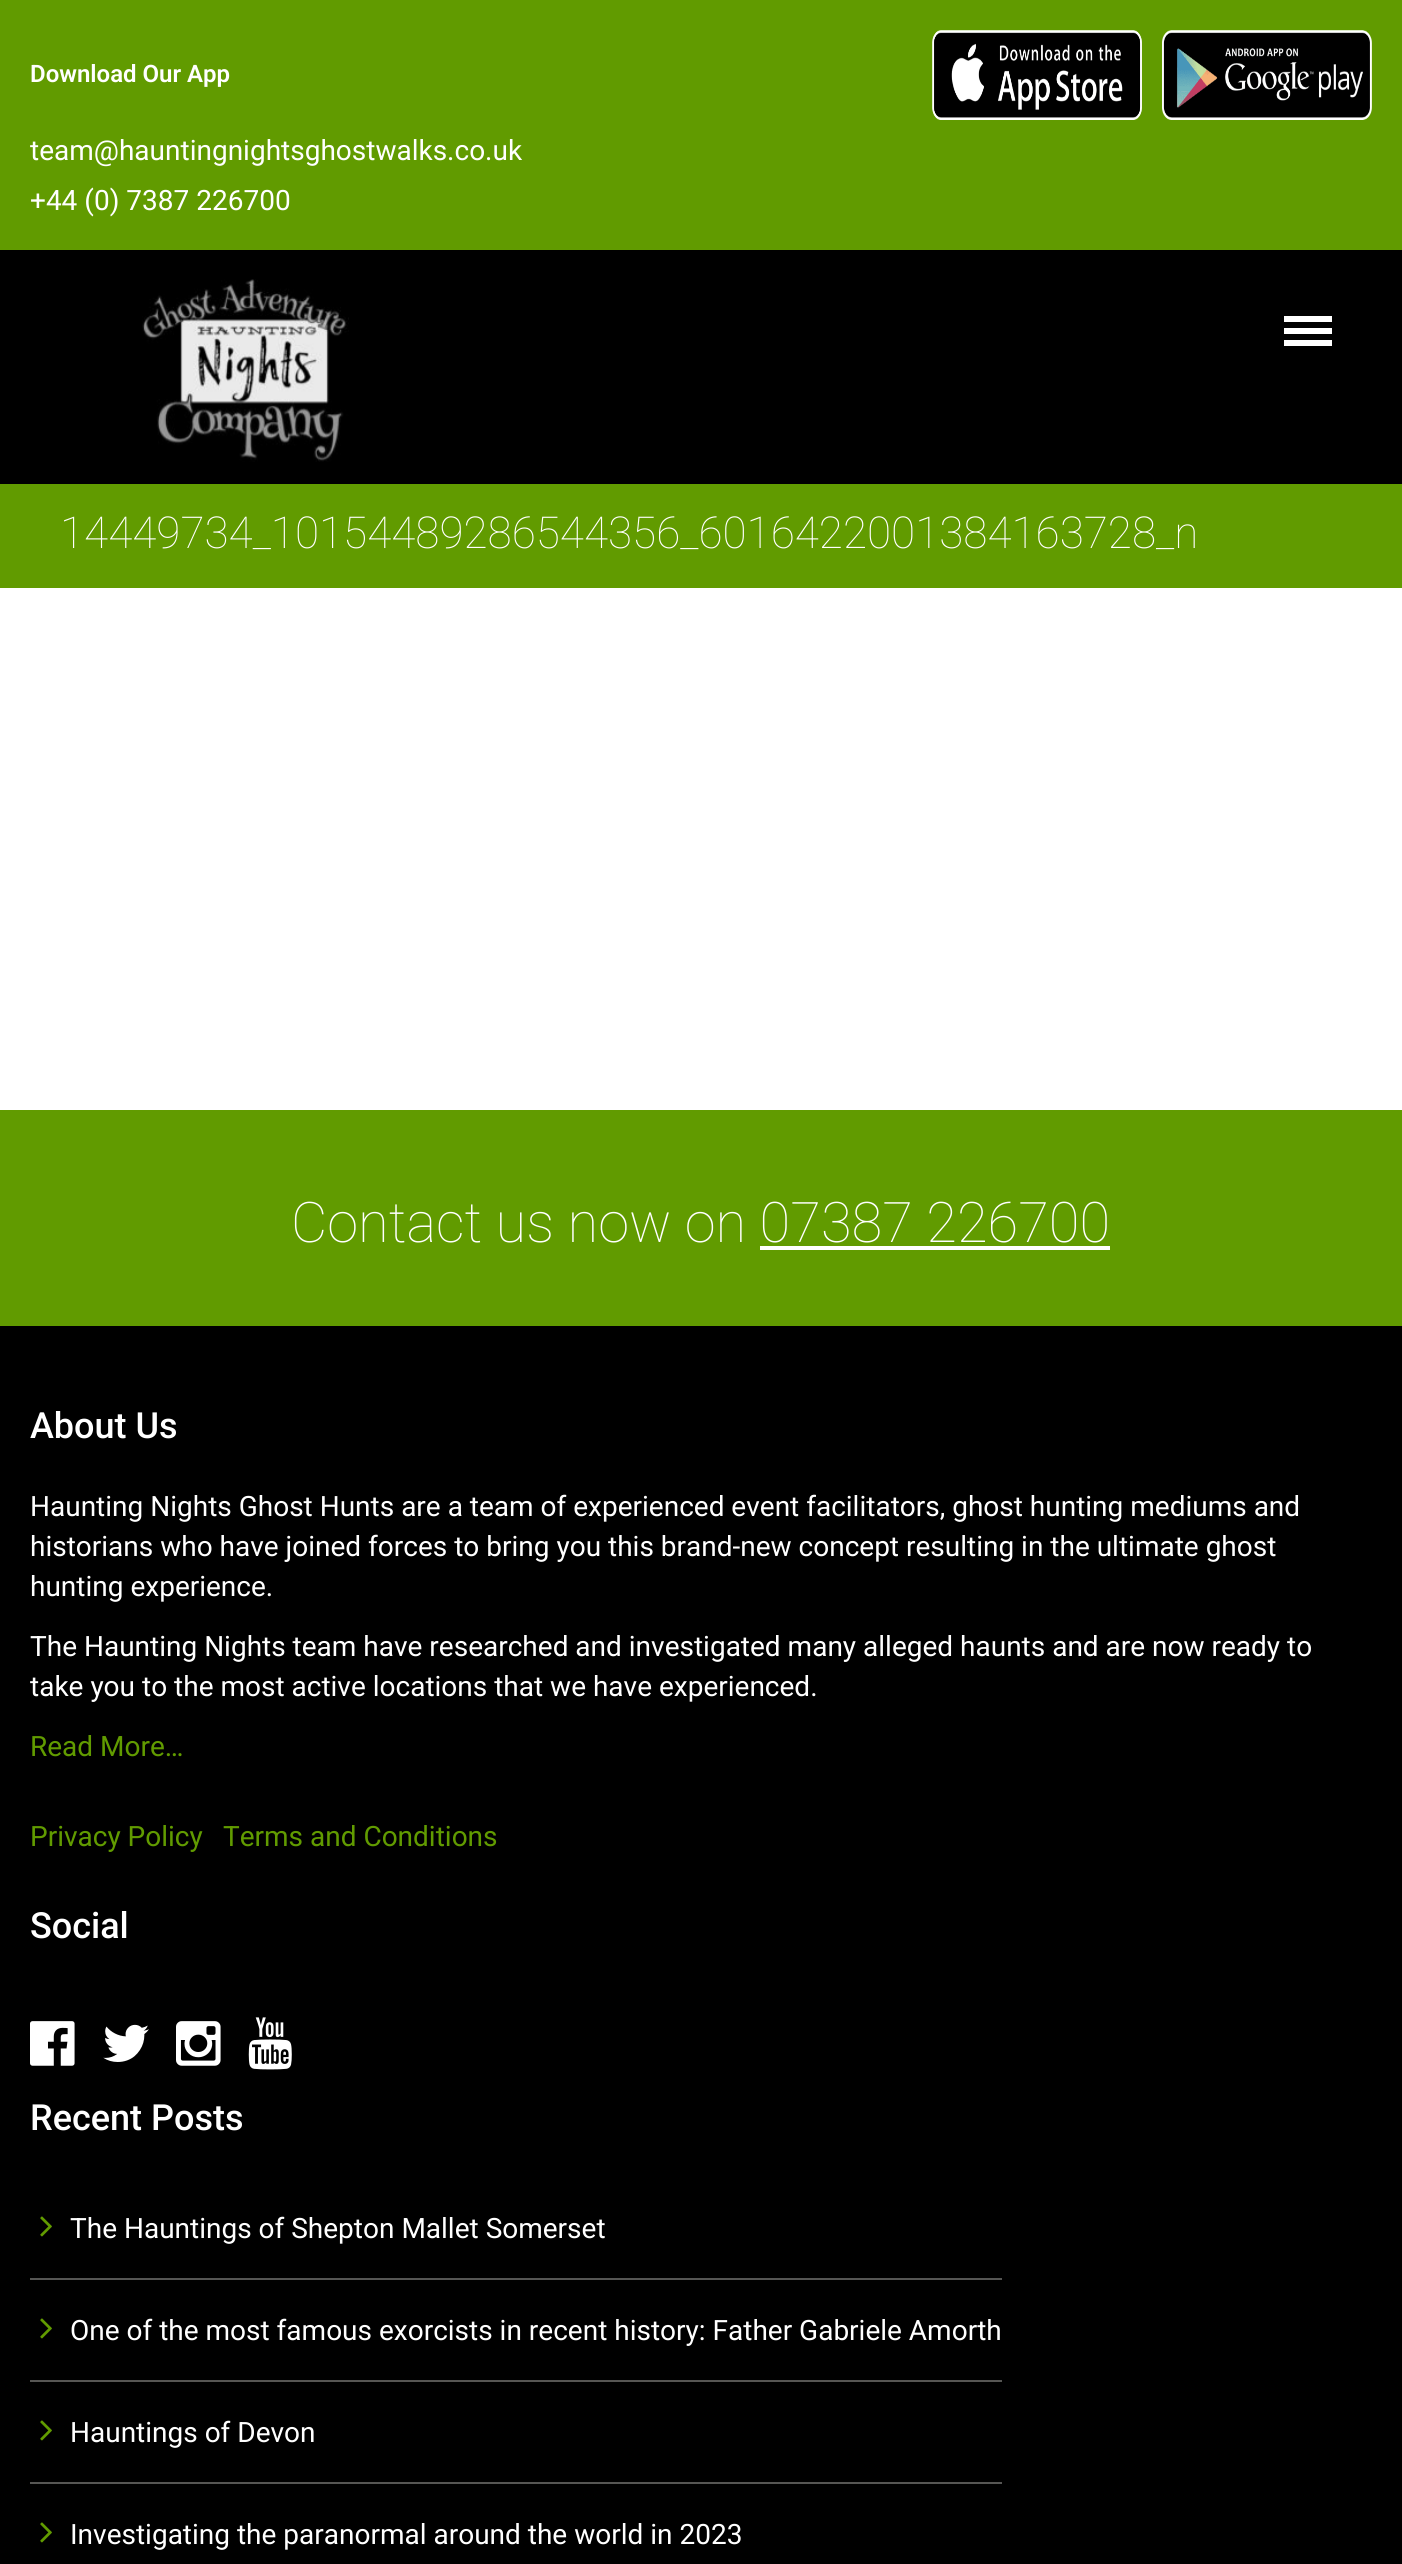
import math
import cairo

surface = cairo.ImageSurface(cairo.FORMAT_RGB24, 1402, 2564)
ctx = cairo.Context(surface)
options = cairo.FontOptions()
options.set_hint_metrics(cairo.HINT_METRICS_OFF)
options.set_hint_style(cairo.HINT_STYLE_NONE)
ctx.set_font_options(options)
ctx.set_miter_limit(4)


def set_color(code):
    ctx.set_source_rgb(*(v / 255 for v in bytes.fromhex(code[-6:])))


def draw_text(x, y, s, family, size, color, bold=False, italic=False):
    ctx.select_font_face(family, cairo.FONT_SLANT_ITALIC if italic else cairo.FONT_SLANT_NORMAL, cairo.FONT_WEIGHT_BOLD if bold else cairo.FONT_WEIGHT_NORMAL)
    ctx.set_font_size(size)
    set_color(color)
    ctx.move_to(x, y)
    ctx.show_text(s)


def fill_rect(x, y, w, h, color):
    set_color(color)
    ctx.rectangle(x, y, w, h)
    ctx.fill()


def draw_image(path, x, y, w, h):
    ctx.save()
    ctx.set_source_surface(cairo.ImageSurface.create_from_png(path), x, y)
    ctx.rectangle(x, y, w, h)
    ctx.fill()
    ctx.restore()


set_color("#ffffff")
ctx.paint()
fill_rect(0, 250, 1402, 234, "#000000")
fill_rect(0, 0, 1402, 250, "#619b00")
draw_text(30, 82, "Download Our App", "Roboto SemiBold", 24, "#ffffff")
draw_image("assets/img1.png", 932, 30, 210, 90)
draw_image("assets/img2.png", 1162, 30, 210, 90)
draw_text(30, 160, "team@hauntingnightsghostwalks.co.uk", "Roboto", 28, "#ffffff")
draw_text(30, 210, "+44 (0) 7387 226700", "Roboto", 28, "#ffffff")
draw_image("assets/img3.png", 142, 279, 207, 183)
fill_rect(1284, 316, 48, 6, "#ffffff")
fill_rect(1284, 328, 48, 6, "#ffffff")
fill_rect(1284, 340, 48, 6, "#ffffff")
fill_rect(0, 484, 1402, 104, "#619b00")
draw_text(60, 548, "14449734_10154489286544356_6016422001384163728_n", "Roboto Thin", 44, "#ffffff")
fill_rect(0, 1110, 1402, 216, "#619b00")
draw_text(291, 1242, "Contact us now on 07387 226700", "Roboto Thin", 56, "#ffffff")
fill_rect(760, 1246, 350, 4, "#ffffff")
fill_rect(0, 1326, 1402, 1238, "#000000")
draw_text(30, 1438, "About Us", "Roboto Medium", 36, "#ffffff")
draw_text(30, 1516, "Haunting Nights Ghost Hunts are a team of experienced event facilitators, ghost hunting mediums and", "Roboto", 28, "#ffffff")
draw_text(30, 1556, "historians who have joined forces to bring you this brand-new concept resulting in the ultimate ghost", "Roboto", 28, "#ffffff")
draw_text(30, 1596, "hunting experience.", "Roboto", 28, "#ffffff")
draw_text(30, 1656, "The Haunting Nights team have researched and investigated many alleged haunts and are now ready to", "Roboto", 28, "#ffffff")
draw_text(30, 1696, "take you to the most active locations that we have experienced.", "Roboto", 28, "#ffffff")
draw_text(30, 1756, "Read More…", "Roboto", 28, "#619b00")
draw_text(30, 1846, "Privacy Policy", "Roboto", 28, "#619b00")
draw_text(223, 1846, "Terms and Conditions", "Roboto", 28, "#619b00")
draw_text(30, 1938, "Social", "Roboto Medium", 36, "#ffffff")
draw_image("assets/img4.png", 30, 2021, 45, 45)
draw_image("assets/img5.png", 103, 2024, 46, 38)
draw_image("assets/img6.png", 176, 2021, 45, 45)
draw_image("assets/img7.png", 248, 2017, 44, 53)
draw_text(30, 2130, "Recent Posts", "Roboto Medium", 36, "#ffffff")
draw_image("assets/img8.png", 40, 2216, 12, 21)
draw_text(70, 2238, "The Hauntings of Shepton Mallet Somerset", "Roboto", 28, "#ffffff")
fill_rect(30, 2278, 972, 2, "#565654")
draw_image("assets/img8.png", 40, 2318, 12, 21)
draw_text(70, 2340, "One of the most famous exorcists in recent history: Father Gabriele Amorth", "Roboto", 28, "#ffffff")
fill_rect(30, 2380, 972, 2, "#565654")
draw_image("assets/img8.png", 40, 2420, 12, 21)
draw_text(70, 2442, "Hauntings of Devon", "Roboto", 28, "#ffffff")
fill_rect(30, 2482, 972, 2, "#565654")
draw_image("assets/img8.png", 40, 2522, 12, 21)
draw_text(70, 2544, "Investigating the paranormal around the world in 2023", "Roboto", 28, "#ffffff")
surface.write_to_png("output.png")
